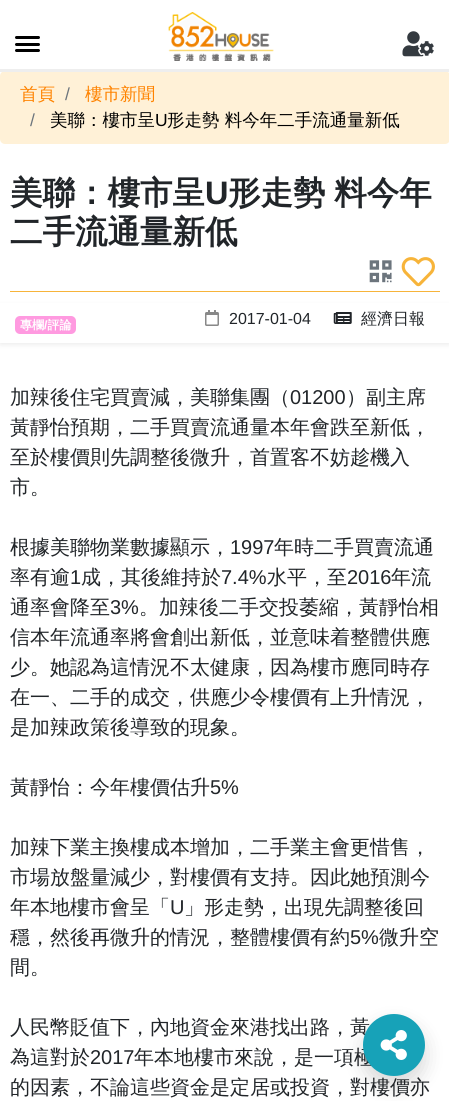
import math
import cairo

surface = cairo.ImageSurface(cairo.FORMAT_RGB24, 449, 1101)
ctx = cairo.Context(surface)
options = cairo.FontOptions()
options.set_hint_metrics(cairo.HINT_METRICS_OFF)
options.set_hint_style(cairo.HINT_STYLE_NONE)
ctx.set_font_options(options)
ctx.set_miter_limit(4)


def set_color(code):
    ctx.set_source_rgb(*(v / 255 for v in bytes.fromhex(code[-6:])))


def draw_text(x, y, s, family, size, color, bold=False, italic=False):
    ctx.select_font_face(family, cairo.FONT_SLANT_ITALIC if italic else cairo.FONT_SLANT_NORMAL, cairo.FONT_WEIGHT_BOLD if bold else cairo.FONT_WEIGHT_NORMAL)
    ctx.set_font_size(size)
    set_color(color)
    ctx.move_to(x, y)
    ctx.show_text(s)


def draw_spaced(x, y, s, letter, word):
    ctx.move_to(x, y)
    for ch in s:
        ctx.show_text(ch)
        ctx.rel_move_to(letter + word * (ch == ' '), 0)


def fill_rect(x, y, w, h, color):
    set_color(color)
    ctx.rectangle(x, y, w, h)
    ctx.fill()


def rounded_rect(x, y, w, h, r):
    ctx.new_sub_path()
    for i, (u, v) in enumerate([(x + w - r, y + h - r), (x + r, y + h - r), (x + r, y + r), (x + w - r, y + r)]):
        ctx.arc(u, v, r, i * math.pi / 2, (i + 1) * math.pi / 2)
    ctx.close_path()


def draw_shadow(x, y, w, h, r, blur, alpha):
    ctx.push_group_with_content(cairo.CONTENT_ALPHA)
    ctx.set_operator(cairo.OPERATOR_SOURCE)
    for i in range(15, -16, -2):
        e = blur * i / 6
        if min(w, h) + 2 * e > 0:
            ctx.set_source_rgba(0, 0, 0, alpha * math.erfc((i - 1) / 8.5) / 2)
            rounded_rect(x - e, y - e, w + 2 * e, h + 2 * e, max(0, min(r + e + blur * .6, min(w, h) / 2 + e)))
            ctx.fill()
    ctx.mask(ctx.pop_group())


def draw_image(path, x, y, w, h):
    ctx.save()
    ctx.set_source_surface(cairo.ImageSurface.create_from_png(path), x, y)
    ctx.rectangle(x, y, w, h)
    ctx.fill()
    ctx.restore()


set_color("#ffffff")
ctx.paint()
set_color("#fff1d7")
rounded_rect(0, 71, 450, 73, 5)
ctx.fill()
fill_rect(0, 69, 449, 3, "#eeeeee")
set_color("#000000")
rounded_rect(15, 43, 25, 3, 1.5)
ctx.fill()
rounded_rect(15, 36, 25, 3, 1.5)
ctx.fill()
rounded_rect(15, 49, 25, 3, 1.5)
ctx.fill()
draw_image("assets/img1.png", 168, 12, 106, 49)
draw_image("assets/img2.png", 402, 31, 32, 26)
draw_text(20, 100, "首頁", "WenQuanYi Zen Hei Medium", 17.5, "#ff8300")
draw_text(65, 100, "/", "Liberation Sans", 17.5, "#6c757d")
draw_text(85, 100, "樓市新聞", "WenQuanYi Zen Hei Medium", 17.5, "#ff8300")
draw_text(30, 126, "/", "Liberation Sans", 17.5, "#6c757d")
draw_text(50, 126, "美聯：樓市呈", "WenQuanYi Zen Hei Medium", 17.5, "#000000")
draw_text(155, 126, "U", "Liberation Sans", 17.5, "#000000")
draw_text(167, 126, "形走勢 料今年二手流通量新低", "WenQuanYi Zen Hei Medium", 17.5, "#000000")
fill_rect(10, 291, 430, 1, "#f7b43a")
draw_text(10, 204, "美聯：樓市呈", "WenQuanYi Zen Hei", 32.5, "#212529", bold=True)
draw_text(205, 204, "U", "Liberation Sans", 32.5, "#212529", bold=True)
ctx.select_font_face("WenQuanYi Zen Hei", cairo.FONT_SLANT_NORMAL, cairo.FONT_WEIGHT_BOLD)
draw_spaced(228, 204, "形走勢 料今年", 0, -1)
draw_text(10, 243, "二手流通量新低", "WenQuanYi Zen Hei", 32.5, "#212529", bold=True)
draw_image("assets/img3.png", 369, 260, 23, 23)
draw_image("assets/img4.png", 401, 257, 34, 30)
ctx.save()
ctx.set_fill_rule(cairo.FILL_RULE_EVEN_ODD)
ctx.new_path()
ctx.move_to(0, 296)
ctx.line_to(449, 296)
ctx.line_to(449, 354)
ctx.line_to(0, 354)
ctx.close_path()
ctx.move_to(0, 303)
ctx.line_to(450, 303)
ctx.line_to(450, 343)
ctx.line_to(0, 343)
ctx.close_path()
ctx.clip()
set_color("#000000")
draw_shadow(0, 305, 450, 40, 0, 2.5, 0.07)
ctx.restore()
set_color("#ff9ae0")
rounded_rect(15, 316, 61, 18, 5)
ctx.fill()
draw_text(20, 329, "專欄 評論", "WenQuanYi Zen Hei", 12, "#ffffff", bold=True)
draw_text(44, 329, "/", "Liberation Sans", 12, "#ffffff", bold=True)
draw_image("assets/img5.png", 205, 310, 14, 16)
draw_text(229, 324, "2017-01-04", "Liberation Sans", 16, "#212529")
draw_image("assets/img6.png", 333, 312, 19, 12)
draw_text(361, 324, "經濟日報", "WenQuanYi Zen Hei Medium", 16, "#212529")
draw_text(10, 404, "加辣後住宅買賣減，美聯集團（", "WenQuanYi Zen Hei Medium", 20, "#212529")
draw_text(290, 404, "01200", "Liberation Sans", 20, "#212529")
draw_text(346, 404, "）副主席", "WenQuanYi Zen Hei Medium", 20, "#212529")
draw_text(10, 434, "黃靜怡預期，二手買賣流通量本年會跌至新低，", "WenQuanYi Zen Hei Medium", 20, "#212529")
draw_text(10, 464, "至於樓價則先調整後微升，首置客不妨趁機入", "WenQuanYi Zen Hei Medium", 20, "#212529")
draw_text(10, 494, "市。", "WenQuanYi Zen Hei Medium", 20, "#212529")
draw_text(10, 554, "根據美聯物業數據顯示，", "WenQuanYi Zen Hei Medium", 20, "#212529")
draw_text(230, 554, "1997", "Liberation Sans", 20, "#212529")
draw_text(274, 554, "年時二手買賣流通", "WenQuanYi Zen Hei Medium", 20, "#212529")
draw_text(10, 584, "率有逾", "WenQuanYi Zen Hei Medium", 20, "#212529")
draw_text(70, 584, "1", "Liberation Sans", 20, "#212529")
draw_text(81, 584, "成，其後維持於", "WenQuanYi Zen Hei Medium", 20, "#212529")
draw_text(221, 584, "7.4%", "Liberation Sans", 20, "#212529")
draw_text(267, 584, "水平，至", "WenQuanYi Zen Hei Medium", 20, "#212529")
draw_text(347, 584, "2016", "Liberation Sans", 20, "#212529")
draw_text(391, 584, "年流", "WenQuanYi Zen Hei Medium", 20, "#212529")
draw_text(10, 614, "通率會降至", "WenQuanYi Zen Hei Medium", 20, "#212529")
draw_text(110, 614, "3%", "Liberation Sans", 20, "#212529")
draw_text(139, 614, "。加辣後二手交投萎縮，黃靜怡相", "WenQuanYi Zen Hei Medium", 20, "#212529")
draw_text(10, 644, "信本年流通率將會創出新低，並意味着整體供應", "WenQuanYi Zen Hei Medium", 20, "#212529")
draw_text(10, 674, "少。她認為這情況不太健康，因為樓市應同時存", "WenQuanYi Zen Hei Medium", 20, "#212529")
draw_text(10, 704, "在一、二手的成交，供應少令樓價有上升情況，", "WenQuanYi Zen Hei Medium", 20, "#212529")
draw_text(10, 734, "是加辣政策後導致的現象。", "WenQuanYi Zen Hei Medium", 20, "#212529")
draw_text(10, 794, "黃靜怡：今年樓價估升", "WenQuanYi Zen Hei Medium", 20, "#212529")
draw_text(210, 794, "5%", "Liberation Sans", 20, "#212529")
draw_text(10, 854, "加辣下業主換樓成本增加，二手業主會更惜售，", "WenQuanYi Zen Hei Medium", 20, "#212529")
draw_text(10, 884, "市場放盤量減少，對樓價有支持。因此她預測今", "WenQuanYi Zen Hei Medium", 20, "#212529")
draw_text(10, 914, "年本地樓市會呈「", "WenQuanYi Zen Hei Medium", 20, "#212529")
draw_text(170, 914, "U", "Liberation Sans", 20, "#212529")
draw_text(184, 914, "」形走勢，出現先調整後回", "WenQuanYi Zen Hei Medium", 20, "#212529")
draw_text(10, 944, "穩，然後再微升的情況，整體樓價有約", "WenQuanYi Zen Hei Medium", 20, "#212529")
draw_text(350, 944, "5%", "Liberation Sans", 20, "#212529")
draw_text(379, 944, "微升空", "WenQuanYi Zen Hei Medium", 20, "#212529")
draw_text(10, 974, "間。", "WenQuanYi Zen Hei Medium", 20, "#212529")
draw_text(10, 1034, "人民幣貶值下，內地資金來港找出路，黃", "WenQuanYi Zen Hei Medium", 20, "#212529")
draw_text(10, 1064, "為這對於", "WenQuanYi Zen Hei Medium", 20, "#212529")
draw_text(90, 1064, "2017", "Liberation Sans", 20, "#212529")
draw_text(134, 1064, "年本地樓市來說，是一項極", "WenQuanYi Zen Hei Medium", 20, "#212529")
draw_text(10, 1094, "的因素，不論這些資金是定居或投資，對樓價亦", "WenQuanYi Zen Hei Medium", 20, "#212529")
set_color("#000000")
draw_shadow(363, 1024, 62, 62, 31, 10, 0.15)
set_color("#17a2b8")
ctx.arc(394, 1045, 31, 0, 2 * math.pi)
ctx.fill()
draw_image("assets/img7.png", 380, 1030, 27, 30)
surface.write_to_png("output.png")
